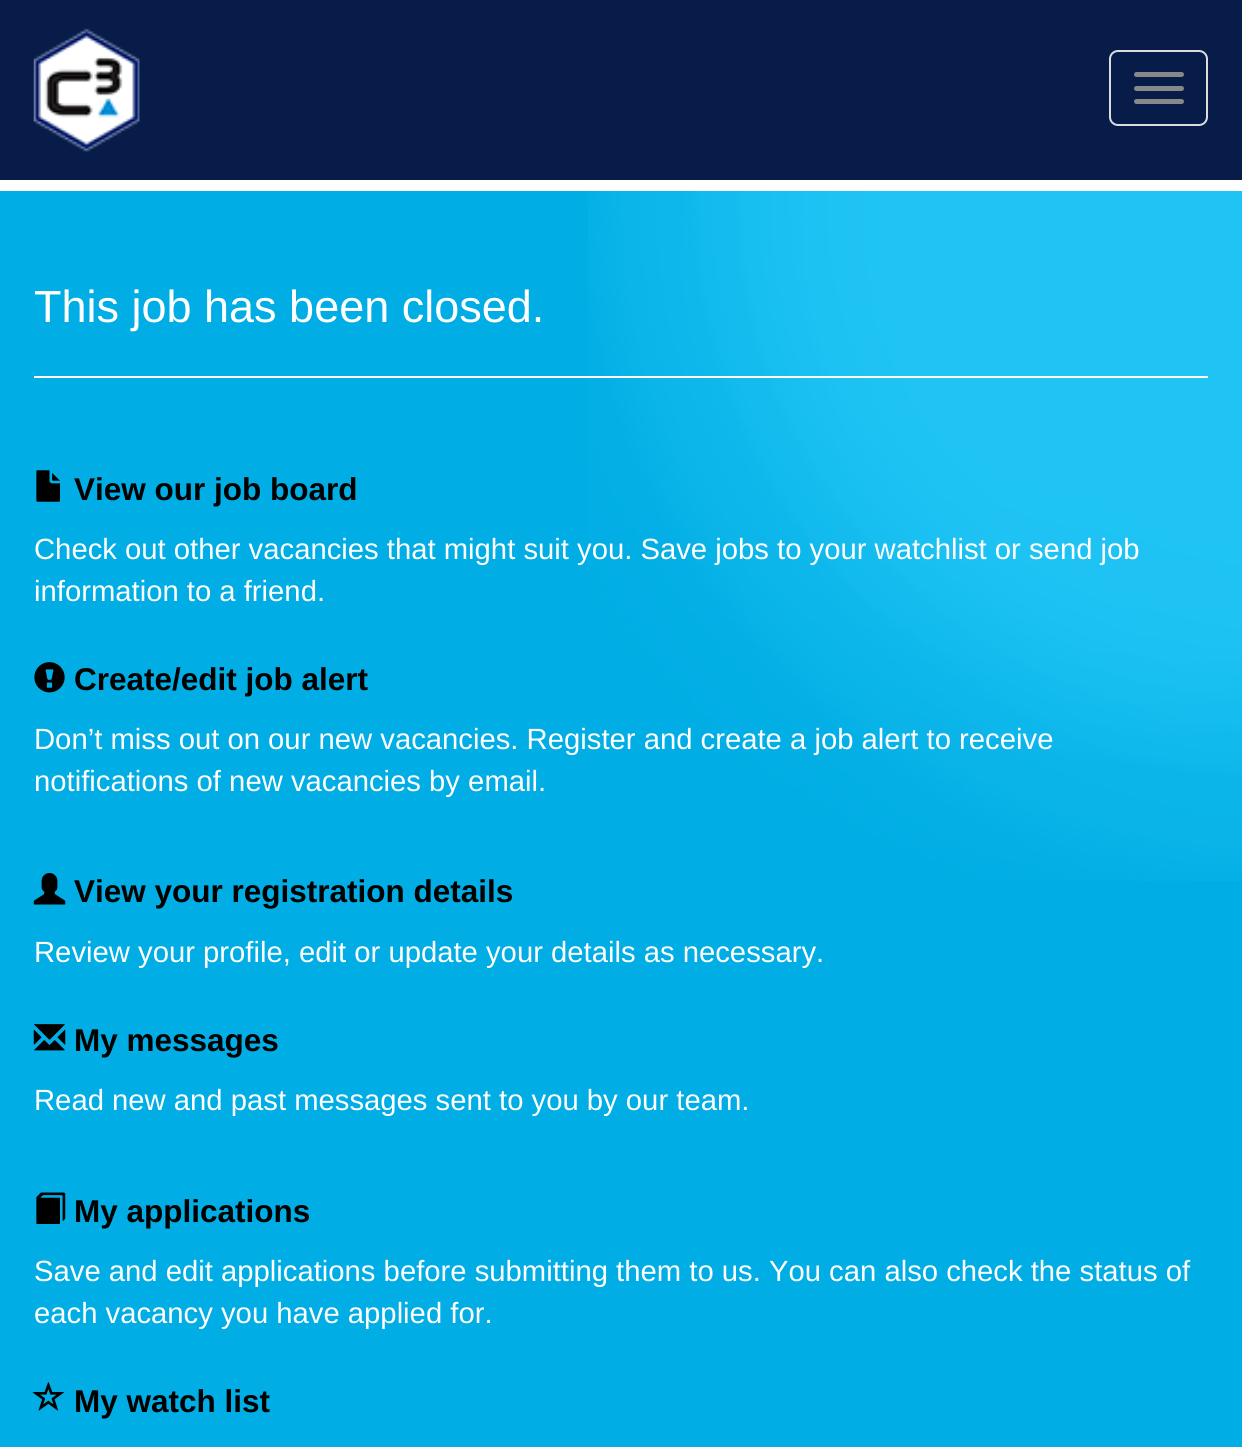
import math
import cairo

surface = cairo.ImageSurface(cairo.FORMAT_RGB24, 1242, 1447)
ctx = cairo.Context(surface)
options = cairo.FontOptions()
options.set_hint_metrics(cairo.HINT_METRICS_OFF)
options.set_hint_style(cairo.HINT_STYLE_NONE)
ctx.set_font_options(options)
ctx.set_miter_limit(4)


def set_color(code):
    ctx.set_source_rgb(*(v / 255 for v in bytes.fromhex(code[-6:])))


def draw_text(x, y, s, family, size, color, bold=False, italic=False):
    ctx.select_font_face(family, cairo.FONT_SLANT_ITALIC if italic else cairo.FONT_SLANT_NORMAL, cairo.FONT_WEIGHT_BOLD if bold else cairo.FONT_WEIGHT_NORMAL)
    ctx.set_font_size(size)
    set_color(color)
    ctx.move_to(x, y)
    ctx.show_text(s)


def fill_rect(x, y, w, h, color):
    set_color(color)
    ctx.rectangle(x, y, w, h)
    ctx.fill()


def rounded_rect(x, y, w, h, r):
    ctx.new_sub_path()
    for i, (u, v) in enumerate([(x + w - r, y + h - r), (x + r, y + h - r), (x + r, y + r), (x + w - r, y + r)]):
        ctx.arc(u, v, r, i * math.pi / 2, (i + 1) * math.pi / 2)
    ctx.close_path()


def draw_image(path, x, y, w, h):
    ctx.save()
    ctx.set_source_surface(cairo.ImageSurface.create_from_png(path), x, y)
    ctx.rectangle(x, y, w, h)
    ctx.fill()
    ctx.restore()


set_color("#00ade4")
ctx.paint()
draw_image("assets/img1.png", 588, 191, 654, 690)
fill_rect(0, 0, 1242, 180, "#081c4a")
fill_rect(0, 180, 1242, 11, "#ffffff")
draw_image("assets/img2.png", 33, 28, 107, 124)
rounded_rect(1110, 51, 97, 74, 8)
set_color("#dddddd")
ctx.stroke()
set_color("#888888")
rounded_rect(1134, 72, 50, 5, 2.5)
ctx.fill()
rounded_rect(1134, 86, 50, 5, 2.5)
ctx.fill()
rounded_rect(1134, 99, 50, 5, 2.5)
ctx.fill()
draw_text(34, 322, "This job has been closed.", "Liberation Sans", 45, "#ffffff")
fill_rect(34, 376, 1174, 2, "#ffffff")
draw_image("assets/img3.png", 36, 470, 24, 32)
draw_text(74, 500, "View our job board", "Liberation Sans", 31.5, "#000000", bold=True)
draw_text(34, 559, "Check out other vacancies that might suit you. Save jobs to your watchlist or send job", "Liberation Sans", 29.25, "#ffffff")
draw_text(34, 601, "information to a friend.", "Liberation Sans", 29.25, "#ffffff")
draw_image("assets/img4.png", 34, 662, 31, 31)
draw_text(74, 690, "Create/edit job alert", "Liberation Sans", 31.5, "#000000", bold=True)
draw_text(34, 749, "Don’t miss out on our new vacancies. Register and create a job alert to receive", "Liberation Sans", 29.25, "#ffffff")
draw_text(34, 791, "notifications of new vacancies by email.", "Liberation Sans", 29.25, "#ffffff")
draw_image("assets/img5.png", 33, 873, 33, 32)
draw_text(74, 902, "View your registration details", "Liberation Sans", 31.5, "#000000", bold=True)
draw_text(34, 962, "Review your profile, edit or update your details as necessary.", "Liberation Sans", 29.25, "#ffffff")
draw_image("assets/img6.png", 33, 1024, 33, 27)
draw_text(74, 1051, "My messages", "Liberation Sans", 31.5, "#000000", bold=True)
draw_text(34, 1110, "Read new and past messages sent to you by our team.", "Liberation Sans", 29.25, "#ffffff")
draw_image("assets/img7.png", 36, 1192, 30, 32)
draw_text(74, 1222, "My applications", "Liberation Sans", 31.5, "#000000", bold=True)
draw_text(34, 1281, "Save and edit applications before submitting them to us. You can also check the status of", "Liberation Sans", 29.25, "#ffffff")
draw_text(34, 1323, "each vacancy you have applied for.", "Liberation Sans", 29.25, "#ffffff")
draw_image("assets/img8.png", 32, 1382, 32, 29)
draw_text(74, 1412, "My watch list", "Liberation Sans", 31.5, "#000000", bold=True)
surface.write_to_png("output.png")
